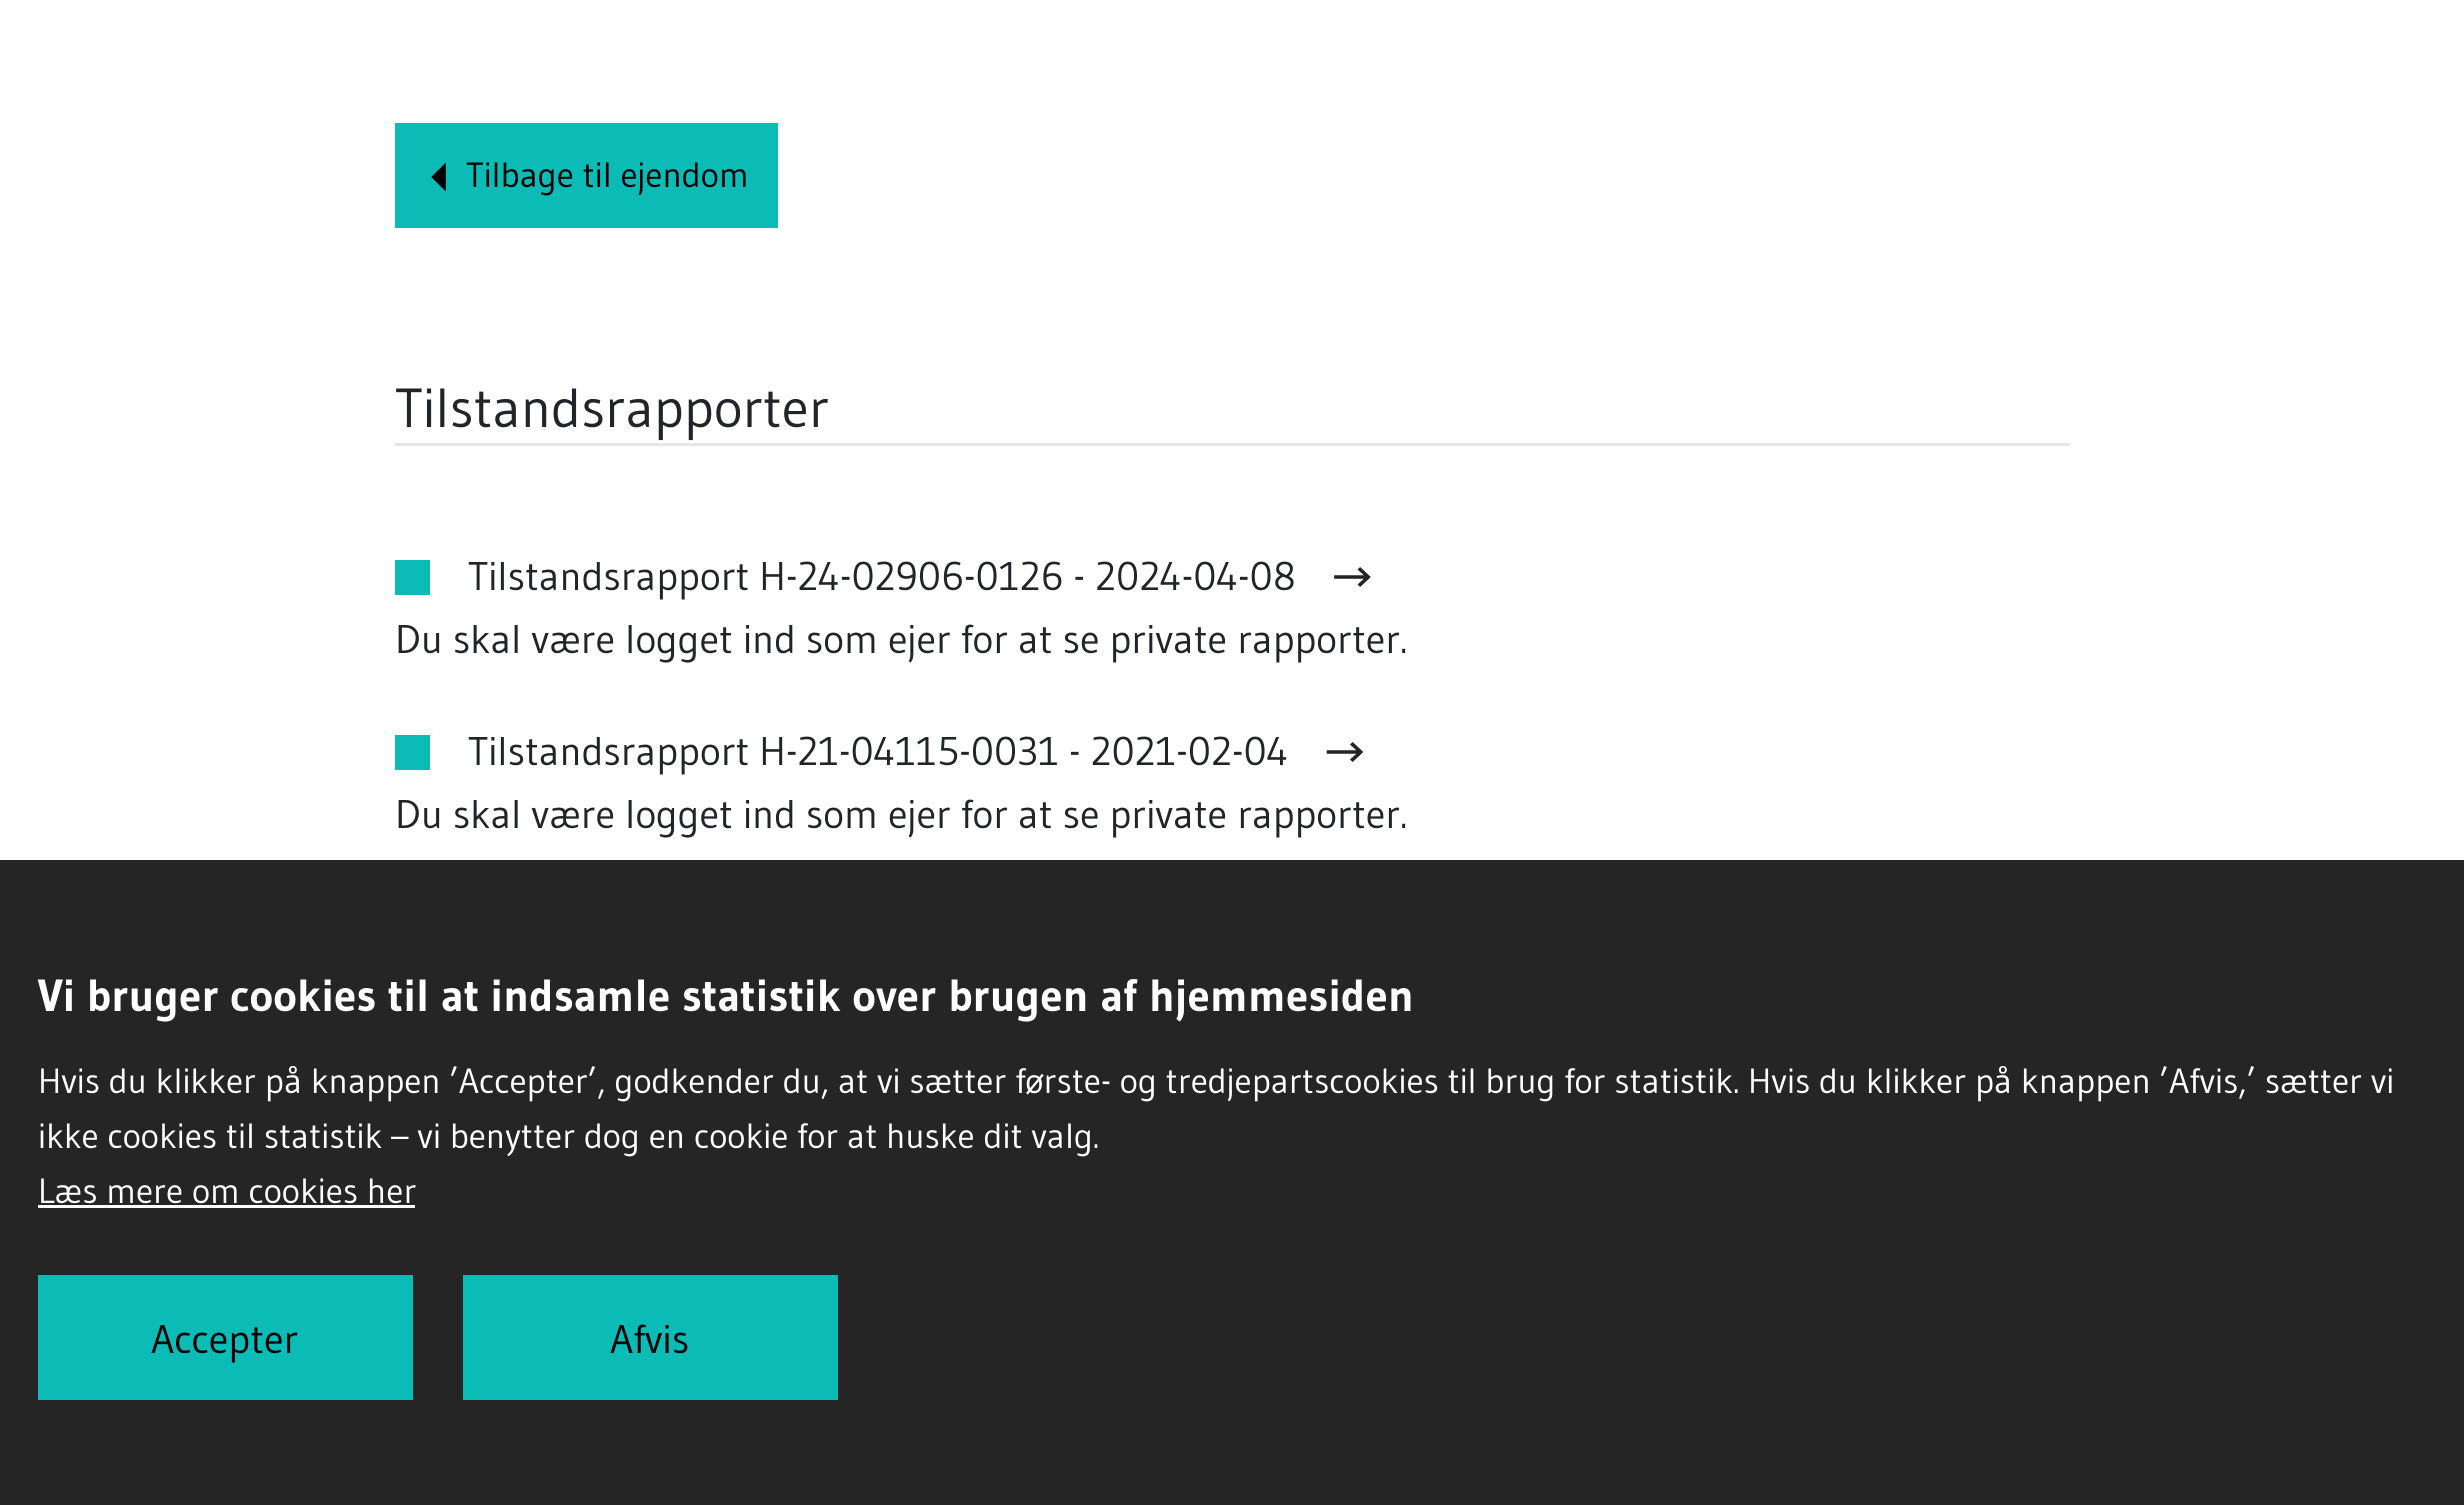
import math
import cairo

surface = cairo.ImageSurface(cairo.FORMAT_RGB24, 2464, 1505)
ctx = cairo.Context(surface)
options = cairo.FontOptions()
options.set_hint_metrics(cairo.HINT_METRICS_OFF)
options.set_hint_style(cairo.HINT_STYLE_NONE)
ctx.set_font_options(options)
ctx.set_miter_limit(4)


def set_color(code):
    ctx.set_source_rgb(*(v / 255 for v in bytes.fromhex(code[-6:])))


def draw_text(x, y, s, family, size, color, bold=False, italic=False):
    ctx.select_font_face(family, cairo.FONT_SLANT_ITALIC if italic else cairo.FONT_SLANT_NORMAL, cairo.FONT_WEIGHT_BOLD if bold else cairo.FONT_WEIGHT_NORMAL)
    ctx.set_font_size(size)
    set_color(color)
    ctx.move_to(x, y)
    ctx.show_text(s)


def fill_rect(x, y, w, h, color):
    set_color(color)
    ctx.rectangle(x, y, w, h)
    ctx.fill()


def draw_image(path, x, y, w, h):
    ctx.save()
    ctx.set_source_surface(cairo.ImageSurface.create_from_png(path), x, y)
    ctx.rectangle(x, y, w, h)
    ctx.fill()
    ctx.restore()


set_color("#ffffff")
ctx.paint()
fill_rect(395, 123, 383, 105, "#0bbbb5")
draw_image("assets/img1.png", 431, 162, 15, 30)
draw_text(466, 187, "Tilbage til ejendom", "Gudea", 35, "#000000")
draw_text(395, 427, "Tilstandsrapporter", "Gudea", 55, "#212529")
fill_rect(395, 443, 1675, 3, "#e6e6e6")
fill_rect(395, 560, 35, 35, "#0bbbb5")
draw_text(468, 590, "Tilstandsrapport H-24-02906-0126 - 2024-04-08", "Gudea", 40, "#212529")
draw_image("assets/img2.png", 1334, 567, 37, 20)
draw_text(395, 653, "Du skal være logget ind som ejer for at se private rapporter.", "Gudea", 40, "#212529")
fill_rect(395, 735, 35, 35, "#0bbbb5")
draw_text(468, 765, "Tilstandsrapport H-21-04115-0031 - 2021-02-04", "Gudea", 40, "#212529")
draw_image("assets/img3.png", 1326, 742, 38, 20)
draw_text(395, 828, "Du skal være logget ind som ejer for at se private rapporter.", "Gudea", 40, "#212529")
fill_rect(0, 860, 2464, 645, "#252525")
draw_text(38, 1011, "Vi bruger cookies til at indsamle statistik over brugen af hjemmesiden", "Gudea", 45, "#ffffff", bold=True)
draw_text(38, 1093, "Hvis du klikker på knappen ’Accepter’, godkender du, at vi sætter første- og tredjepartscookies til brug for statistik. Hvis du klikker på knappen ’Afvis,’ sætter vi", "Gudea", 35, "#ffffff")
draw_text(38, 1148, "ikke cookies til statistik – vi benytter dog en cookie for at huske dit valg.", "Gudea", 35, "#ffffff")
draw_text(38, 1203, "Læs mere om cookies her", "Gudea", 35, "#ffffff")
fill_rect(38, 1205, 377, 3, "#ffffff")
fill_rect(38, 1275, 375, 125, "#0bbbb5")
draw_text(151, 1353, "Accepter", "Gudea", 40, "#000000")
fill_rect(463, 1275, 375, 125, "#0bbbb5")
draw_text(610, 1353, "Afvis", "Gudea", 40, "#000000")
surface.write_to_png("output.png")
